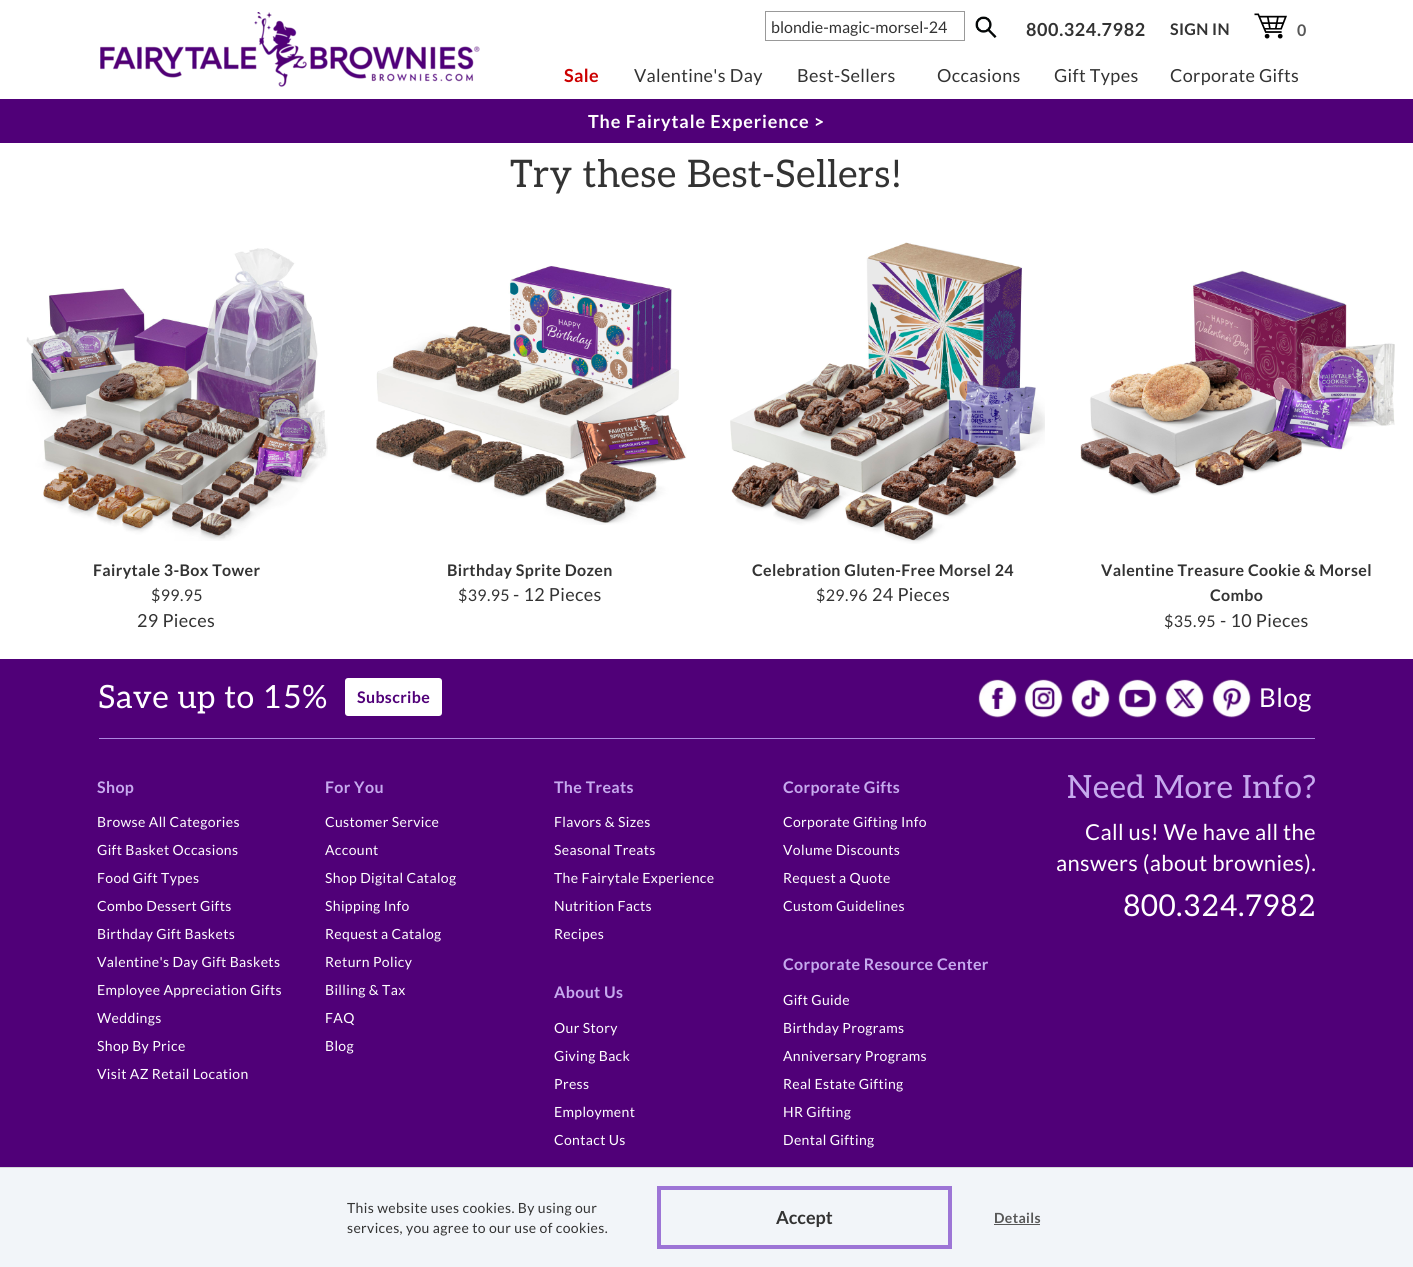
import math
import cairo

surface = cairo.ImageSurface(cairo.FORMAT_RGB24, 1413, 1267)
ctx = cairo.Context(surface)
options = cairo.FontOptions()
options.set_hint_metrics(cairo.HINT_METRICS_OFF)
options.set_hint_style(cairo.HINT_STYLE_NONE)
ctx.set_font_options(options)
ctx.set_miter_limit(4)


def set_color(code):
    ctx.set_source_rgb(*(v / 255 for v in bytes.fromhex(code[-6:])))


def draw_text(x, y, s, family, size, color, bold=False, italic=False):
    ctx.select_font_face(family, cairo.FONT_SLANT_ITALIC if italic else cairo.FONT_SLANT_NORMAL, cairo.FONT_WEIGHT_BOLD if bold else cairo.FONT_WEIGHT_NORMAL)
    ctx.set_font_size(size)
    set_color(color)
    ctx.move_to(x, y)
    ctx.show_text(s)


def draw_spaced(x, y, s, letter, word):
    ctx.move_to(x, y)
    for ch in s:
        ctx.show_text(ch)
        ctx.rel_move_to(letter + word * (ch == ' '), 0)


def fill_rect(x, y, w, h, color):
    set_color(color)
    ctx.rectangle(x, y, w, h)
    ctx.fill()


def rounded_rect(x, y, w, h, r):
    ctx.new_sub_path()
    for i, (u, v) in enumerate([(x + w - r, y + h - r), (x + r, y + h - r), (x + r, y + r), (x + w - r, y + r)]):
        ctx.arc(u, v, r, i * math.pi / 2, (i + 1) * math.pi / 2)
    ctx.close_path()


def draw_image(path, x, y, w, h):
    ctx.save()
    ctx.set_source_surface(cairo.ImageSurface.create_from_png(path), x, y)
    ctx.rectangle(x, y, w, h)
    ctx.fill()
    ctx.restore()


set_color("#ffffff")
ctx.paint()
draw_image("assets/img1.png", 100, 12, 380, 75)
ctx.rectangle(765.5, 11.5, 199, 29)
set_color("#999999")
ctx.set_line_width(1)
ctx.stroke()
draw_text(771, 33, "blondie-magic-morsel-24", "Lato", 16, "#333333")
draw_image("assets/img2.png", 975, 16, 22, 22)
ctx.select_font_face("Lato", cairo.FONT_SLANT_NORMAL, cairo.FONT_WEIGHT_BOLD)
ctx.set_font_size(18)
draw_spaced(1026, 36, "800.324.7982", 0.6, 0)
ctx.set_font_size(16)
draw_spaced(1170, 35, "SIGN IN", 0.35, 0)
draw_image("assets/img3.png", 1254, 13, 33, 26)
set_color("#575757")
draw_spaced(1297, 36, "0", 0.35, 0)
ctx.set_font_size(18)
set_color("#cc0000")
draw_spaced(564, 82, "Sale", 0.35, 0)
ctx.select_font_face("Lato")
set_color("#333333")
draw_spaced(634, 82, "Valentine's Day", 0.35, 0)
draw_spaced(797, 82, "Best-Sellers", 0.35, 0)
draw_spaced(937, 82, "Occasions", 0.35, 0)
draw_spaced(1054, 82, "Gift Types", 0.35, 0)
draw_spaced(1170, 82, "Corporate Gifts", 0.35, 0)
fill_rect(0, 99, 1413, 44, "#500078")
ctx.select_font_face("Lato", cairo.FONT_SLANT_NORMAL, cairo.FONT_WEIGHT_BOLD)
set_color("#ffffff")
draw_spaced(588, 128, "The Fairytale Experience >", 0.9, 0)
ctx.select_font_face("Aleo")
ctx.set_font_size(38)
set_color("#333333")
draw_spaced(510, 187, "Try these Best-Sellers!", 0.35, 0)
draw_image("assets/img4.png", 26, 248, 302, 293)
ctx.select_font_face("Lato", cairo.FONT_SLANT_NORMAL, cairo.FONT_WEIGHT_BOLD)
ctx.set_font_size(16)
draw_spaced(93, 576, "Fairytale 3-Box Tower", 0.35, 0)
ctx.select_font_face("Lato")
draw_spaced(151, 601, "$99.95", 0.35, 0)
ctx.set_font_size(18)
draw_spaced(137, 627, "29 Pieces", 0.35, 0)
draw_image("assets/img5.png", 376, 265, 311, 260)
ctx.select_font_face("Lato", cairo.FONT_SLANT_NORMAL, cairo.FONT_WEIGHT_BOLD)
ctx.set_font_size(16)
draw_spaced(447, 576, "Birthday Sprite Dozen", 0.35, 0)
ctx.select_font_face("Lato")
draw_spaced(458, 601, "$39.95", 0.35, 0)
ctx.set_font_size(18)
draw_spaced(513, 601, "- 12 Pieces", 0.35, 0)
draw_image("assets/img6.png", 730, 242, 315, 302)
ctx.select_font_face("Lato", cairo.FONT_SLANT_NORMAL, cairo.FONT_WEIGHT_BOLD)
ctx.set_font_size(16)
draw_spaced(752, 576, "Celebration Gluten-Free Morsel 24", 0.35, 0)
ctx.select_font_face("Lato")
draw_spaced(816, 601, "$29.96", 0.35, 0)
ctx.set_font_size(18)
draw_spaced(872, 601, "24 Pieces", 0.35, 0)
draw_image("assets/img7.png", 1080, 270, 315, 226)
ctx.select_font_face("Lato", cairo.FONT_SLANT_NORMAL, cairo.FONT_WEIGHT_BOLD)
ctx.set_font_size(16)
draw_spaced(1101, 576, "Valentine Treasure Cookie & Morsel", 0.35, 0)
draw_spaced(1210, 601, "Combo", 0.35, 0)
ctx.select_font_face("Lato")
draw_spaced(1164, 627, "$35.95", 0.35, 0)
ctx.set_font_size(18)
draw_spaced(1220, 627, "- 10 Pieces", 0.35, 0)
fill_rect(0, 659, 1413, 508, "#500078")
ctx.select_font_face("Aleo")
ctx.set_font_size(32)
set_color("#ffffff")
draw_spaced(98, 708, "Save up to 15%", 0.35, 0)
rounded_rect(345, 678, 97, 38, 3)
ctx.fill()
ctx.select_font_face("Lato", cairo.FONT_SLANT_NORMAL, cairo.FONT_WEIGHT_BOLD)
ctx.set_font_size(16)
set_color("#500078")
draw_spaced(357, 703, "Subscribe", 0.35, 0)
draw_image("assets/img8.png", 978, 679, 39, 39)
draw_image("assets/img9.png", 1024, 679, 39, 39)
draw_image("assets/img10.png", 1071, 679, 39, 39)
draw_image("assets/img11.png", 1118, 679, 39, 39)
draw_image("assets/img12.png", 1165, 679, 39, 39)
draw_image("assets/img13.png", 1212, 679, 39, 39)
ctx.select_font_face("Lato")
ctx.set_font_size(26)
set_color("#ffffff")
draw_spaced(1259, 707, "Blog", 0.35, 0)
fill_rect(99, 738, 1216, 1, "#ad88e1")
ctx.select_font_face("Lato", cairo.FONT_SLANT_NORMAL, cairo.FONT_WEIGHT_BOLD)
ctx.set_font_size(16)
set_color("#c6aaee")
draw_spaced(97, 793, "Shop", 0.35, 0)
ctx.select_font_face("Lato")
ctx.set_font_size(14)
set_color("#ffffff")
draw_spaced(97, 827, "Browse All Categories", 0.35, 0)
draw_spaced(97, 855, "Gift Basket Occasions", 0.35, 0)
draw_spaced(97, 883, "Food Gift Types", 0.35, 0)
draw_spaced(97, 911, "Combo Dessert Gifts", 0.35, 0)
draw_spaced(97, 939, "Birthday Gift Baskets", 0.35, 0)
draw_spaced(97, 967, "Valentine's Day Gift Baskets", 0.35, 0)
draw_spaced(97, 995, "Employee Appreciation Gifts", 0.35, 0)
draw_spaced(97, 1023, "Weddings", 0.35, 0)
draw_spaced(97, 1051, "Shop By Price", 0.35, 0)
draw_spaced(97, 1079, "Visit AZ Retail Location", 0.35, 0)
ctx.select_font_face("Lato", cairo.FONT_SLANT_NORMAL, cairo.FONT_WEIGHT_BOLD)
ctx.set_font_size(16)
set_color("#c6aaee")
draw_spaced(325, 793, "For You", 0.35, 0)
ctx.select_font_face("Lato")
ctx.set_font_size(14)
set_color("#ffffff")
draw_spaced(325, 827, "Customer Service", 0.35, 0)
draw_spaced(325, 855, "Account", 0.35, 0)
draw_spaced(325, 883, "Shop Digital Catalog", 0.35, 0)
draw_spaced(325, 911, "Shipping Info", 0.35, 0)
draw_spaced(325, 939, "Request a Catalog", 0.35, 0)
draw_spaced(325, 967, "Return Policy", 0.35, 0)
draw_spaced(325, 995, "Billing & Tax", 0.35, 0)
draw_spaced(325, 1023, "FAQ", 0.35, 0)
draw_spaced(325, 1051, "Blog", 0.35, 0)
ctx.select_font_face("Lato", cairo.FONT_SLANT_NORMAL, cairo.FONT_WEIGHT_BOLD)
ctx.set_font_size(16)
set_color("#c6aaee")
draw_spaced(554, 793, "The Treats", 0.35, 0)
ctx.select_font_face("Lato")
ctx.set_font_size(14)
set_color("#ffffff")
draw_spaced(554, 827, "Flavors & Sizes", 0.35, 0)
draw_spaced(554, 855, "Seasonal Treats", 0.35, 0)
draw_spaced(554, 883, "The Fairytale Experience", 0.35, 0)
draw_spaced(554, 911, "Nutrition Facts", 0.35, 0)
draw_spaced(554, 939, "Recipes", 0.35, 0)
ctx.select_font_face("Lato", cairo.FONT_SLANT_NORMAL, cairo.FONT_WEIGHT_BOLD)
ctx.set_font_size(16)
set_color("#c6aaee")
draw_spaced(554, 998, "About Us", 0.35, 0)
ctx.select_font_face("Lato")
ctx.set_font_size(14)
set_color("#ffffff")
draw_spaced(554, 1033, "Our Story", 0.35, 0)
draw_spaced(554, 1061, "Giving Back", 0.35, 0)
draw_spaced(554, 1089, "Press", 0.35, 0)
draw_spaced(554, 1117, "Employment", 0.35, 0)
draw_spaced(554, 1145, "Contact Us", 0.35, 0)
ctx.select_font_face("Lato", cairo.FONT_SLANT_NORMAL, cairo.FONT_WEIGHT_BOLD)
ctx.set_font_size(16)
set_color("#c6aaee")
draw_spaced(783, 793, "Corporate Gifts", 0.35, 0)
ctx.select_font_face("Lato")
ctx.set_font_size(14)
set_color("#ffffff")
draw_spaced(783, 827, "Corporate Gifting Info", 0.35, 0)
draw_spaced(783, 855, "Volume Discounts", 0.35, 0)
draw_spaced(783, 883, "Request a Quote", 0.35, 0)
draw_spaced(783, 911, "Custom Guidelines", 0.35, 0)
ctx.select_font_face("Lato", cairo.FONT_SLANT_NORMAL, cairo.FONT_WEIGHT_BOLD)
ctx.set_font_size(16)
set_color("#c6aaee")
draw_spaced(783, 970, "Corporate Resource Center", 0.35, 0)
ctx.select_font_face("Lato")
ctx.set_font_size(14)
set_color("#ffffff")
draw_spaced(783, 1005, "Gift Guide", 0.35, 0)
draw_spaced(783, 1033, "Birthday Programs", 0.35, 0)
draw_spaced(783, 1061, "Anniversary Programs", 0.35, 0)
draw_spaced(783, 1089, "Real Estate Gifting", 0.35, 0)
draw_spaced(783, 1117, "HR Gifting", 0.35, 0)
draw_spaced(783, 1145, "Dental Gifting", 0.35, 0)
ctx.select_font_face("Aleo")
ctx.set_font_size(32)
set_color("#c6aaee")
draw_spaced(1067, 798, "Need More Info?", 0.35, 0)
ctx.select_font_face("Lato")
ctx.set_font_size(22)
set_color("#ffffff")
draw_spaced(1085, 840, "Call us! We have all the", 0.35, 0)
draw_spaced(1056, 871, "answers (about brownies).", 0.35, 0)
ctx.select_font_face("Aleo")
ctx.set_font_size(30)
draw_spaced(1123, 916, "800.324.7982", 0.35, 0)
fill_rect(0, 1168, 1413, 99, "#f2f5f9")
fill_rect(0, 1167, 1413, 1, "#d3d6d9")
ctx.select_font_face("Lato")
ctx.set_font_size(14)
set_color("#333333")
draw_spaced(347, 1213, "This website uses cookies. By using our", 0.35, 0)
draw_spaced(347, 1233, "services, you agree to our use of cookies.", 0.35, 0)
ctx.rectangle(659, 1188, 291, 59)
set_color("#9d75d6")
ctx.set_line_width(4)
ctx.stroke()
draw_text(776, 1224, "Accept", "Lato", 18, "#333333", bold=True)
ctx.set_font_size(14)
set_color("#575757")
draw_spaced(994, 1223, "Details", 0.35, 0)
fill_rect(994, 1224, 46, 1, "#575757")
surface.write_to_png("output.png")
